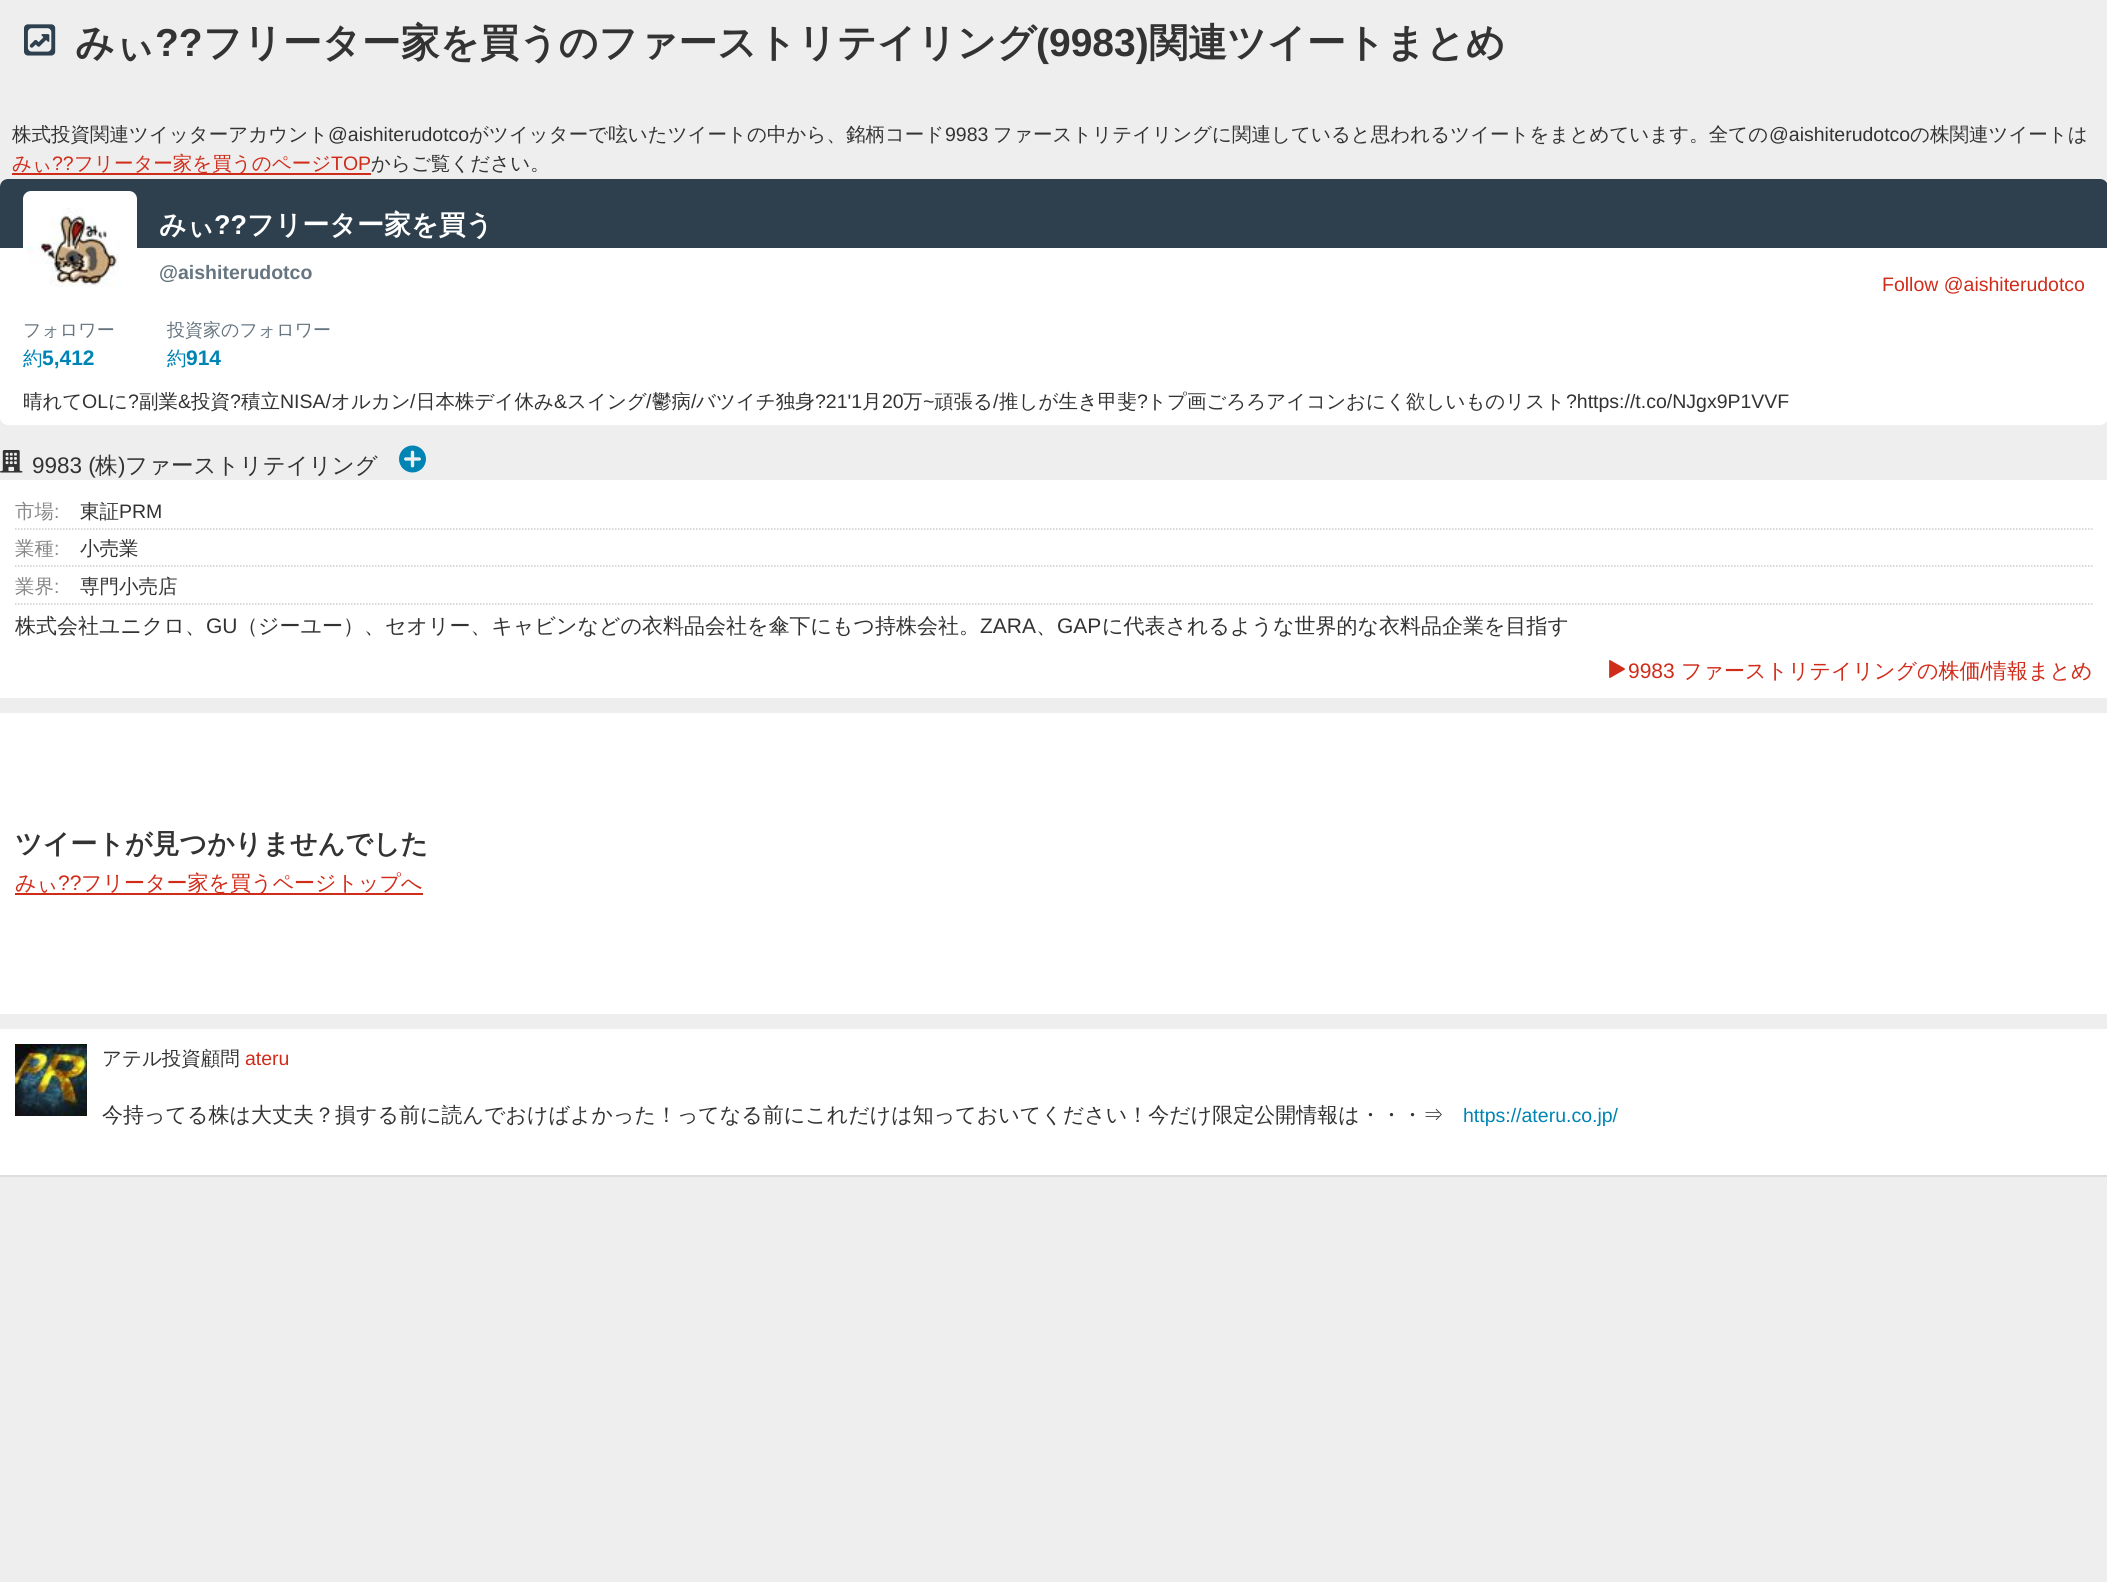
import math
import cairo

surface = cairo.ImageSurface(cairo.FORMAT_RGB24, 2107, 1582)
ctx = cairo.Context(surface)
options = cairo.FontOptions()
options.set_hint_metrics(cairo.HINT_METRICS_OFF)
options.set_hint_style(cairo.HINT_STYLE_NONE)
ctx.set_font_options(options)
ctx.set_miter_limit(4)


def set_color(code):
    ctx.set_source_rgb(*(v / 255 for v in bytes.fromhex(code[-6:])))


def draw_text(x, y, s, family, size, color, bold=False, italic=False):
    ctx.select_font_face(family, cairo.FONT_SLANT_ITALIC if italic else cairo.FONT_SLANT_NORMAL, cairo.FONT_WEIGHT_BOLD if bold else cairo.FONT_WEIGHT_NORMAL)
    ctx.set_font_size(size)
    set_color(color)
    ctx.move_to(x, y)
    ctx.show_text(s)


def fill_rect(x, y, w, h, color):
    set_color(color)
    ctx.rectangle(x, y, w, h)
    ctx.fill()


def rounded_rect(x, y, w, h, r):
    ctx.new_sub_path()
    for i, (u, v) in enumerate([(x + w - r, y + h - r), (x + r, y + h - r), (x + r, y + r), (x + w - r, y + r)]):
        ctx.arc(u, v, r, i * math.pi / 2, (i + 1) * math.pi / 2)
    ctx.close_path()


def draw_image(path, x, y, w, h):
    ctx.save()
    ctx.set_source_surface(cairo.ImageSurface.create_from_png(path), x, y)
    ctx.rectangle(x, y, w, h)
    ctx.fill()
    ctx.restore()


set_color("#eeeeee")
ctx.paint()
draw_image("assets/img1.png", 24, 24, 32, 32)
draw_text(75, 56, "みぃ", "WenQuanYi Zen Hei", 39, "#333333", bold=True)
draw_text(155, 56, "??", "Liberation Sans", 39, "#333333", bold=True)
draw_text(203, 56, "フリーター家を買うのファーストリテイリング", "WenQuanYi Zen Hei", 39, "#333333", bold=True)
draw_text(1036, 56, "(9983)", "Liberation Sans", 39, "#333333", bold=True)
draw_text(1149, 56, "関連ツイートまとめ", "WenQuanYi Zen Hei", 39, "#333333", bold=True)
draw_text(12, 141, "株式投資関連ツイッターアカウント", "WenQuanYi Zen Hei Medium", 19.5, "#333333")
draw_text(328, 141, "@aishiterudotco", "Liberation Sans", 19.5, "#333333")
draw_text(469, 141, "がツイッターで呟いたツイートの中から、銘柄コード", "WenQuanYi Zen Hei Medium", 19.5, "#333333")
draw_text(945, 141, "9983", "Liberation Sans", 19.5, "#333333")
draw_text(993, 141, "ファーストリテイリングに関連していると思われるツイートをまとめています。全ての", "WenQuanYi Zen Hei Medium", 19.5, "#333333")
draw_text(1769, 141, "@aishiterudotco", "Liberation Sans", 19.5, "#333333")
draw_text(1910, 141, "の株関連ツイートは", "WenQuanYi Zen Hei Medium", 19.5, "#333333")
draw_text(12, 170, "みぃ", "WenQuanYi Zen Hei Medium", 19.5, "#d02c1a")
fill_rect(12, 173, 359, 2, "#d02c1a")
draw_text(52, 170, "??", "Liberation Sans", 19.5, "#d02c1a")
draw_text(74, 170, "フリーター家を買うのページ", "WenQuanYi Zen Hei Medium", 19.5, "#d02c1a")
draw_text(331, 170, "TOP", "Liberation Sans", 19.5, "#d02c1a")
draw_text(371, 170, "からご覧ください。", "WenQuanYi Zen Hei Medium", 19.5, "#333333")
set_color("#ffffff")
rounded_rect(0, 179, 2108, 246, 8)
ctx.fill()
set_color("#2e404e")
ctx.new_path()
ctx.move_to(8, 179)
ctx.line_to(2100, 179)
ctx.curve_to(2104.5, 179, 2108, 182.5, 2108, 187)
ctx.line_to(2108, 248)
ctx.line_to(0, 248)
ctx.line_to(0, 187)
ctx.curve_to(0, 182.5, 3.5, 179, 8, 179)
ctx.close_path()
ctx.fill()
set_color("#ffffff")
rounded_rect(23, 191, 114, 114, 8)
ctx.fill()
draw_image("assets/img2.png", 27, 208, 93, 79)
draw_text(159, 234, "みぃ", "WenQuanYi Zen Hei", 27, "#ffffff", bold=True)
draw_text(214, 234, "??", "Liberation Sans", 27, "#ffffff", bold=True)
draw_text(247, 234, "フリーター家を買う", "WenQuanYi Zen Hei", 27, "#ffffff", bold=True)
draw_text(159, 279, "@aishiterudotco", "Liberation Sans", 19.5, "#66757f", bold=True)
draw_text(1882, 291, "Follow @aishiterudotco", "Liberation Sans", 19.5, "#d02c1a")
draw_text(23, 336, "フォロワー", "WenQuanYi Zen Hei Medium", 18, "#66757f")
draw_text(23, 365, "約", "WenQuanYi Zen Hei Medium", 19.5, "#0084b4")
draw_text(42, 365, "5,412", "Liberation Sans", 21, "#0084b4", bold=True)
draw_text(167, 336, "投資家のフォロワー", "WenQuanYi Zen Hei Medium", 18, "#66757f")
draw_text(167, 365, "約", "WenQuanYi Zen Hei Medium", 19.5, "#0084b4")
draw_text(186, 365, "914", "Liberation Sans", 21, "#0084b4", bold=True)
draw_text(23, 408, "晴れて", "WenQuanYi Zen Hei Medium", 19.5, "#333333")
draw_text(82, 408, "OL", "Liberation Sans", 19.5, "#333333")
draw_text(108, 408, "に", "WenQuanYi Zen Hei Medium", 19.5, "#333333")
draw_text(128, 408, "?", "Liberation Sans", 19.5, "#333333")
draw_text(139, 408, "副業", "WenQuanYi Zen Hei Medium", 19.5, "#333333")
draw_text(178, 408, "&", "Liberation Sans", 19.5, "#333333")
draw_text(191, 408, "投資", "WenQuanYi Zen Hei Medium", 19.5, "#333333")
draw_text(230, 408, "?", "Liberation Sans", 19.5, "#333333")
draw_text(241, 408, "積立", "WenQuanYi Zen Hei Medium", 19.5, "#333333")
draw_text(280, 408, "NISA/", "Liberation Sans", 19.5, "#333333")
draw_text(331, 408, "オルカン", "WenQuanYi Zen Hei Medium", 19.5, "#333333")
draw_text(410, 408, "/", "Liberation Sans", 19.5, "#333333")
draw_text(416, 408, "日本株デイ休み", "WenQuanYi Zen Hei Medium", 19.5, "#333333")
draw_text(554, 408, "&", "Liberation Sans", 19.5, "#333333")
draw_text(567, 408, "スイング", "WenQuanYi Zen Hei Medium", 19.5, "#333333")
draw_text(646, 408, "/", "Liberation Sans", 19.5, "#333333")
draw_text(652, 408, "鬱病", "WenQuanYi Zen Hei Medium", 19.5, "#333333")
draw_text(691, 408, "/", "Liberation Sans", 19.5, "#333333")
draw_text(696, 408, "バツイチ独身", "WenQuanYi Zen Hei Medium", 19.5, "#333333")
draw_text(815, 408, "?21'1", "Liberation Sans", 19.5, "#333333")
draw_text(862, 408, "月", "WenQuanYi Zen Hei Medium", 19.5, "#333333")
draw_text(882, 408, "20", "Liberation Sans", 19.5, "#333333")
draw_text(903, 408, "万", "WenQuanYi Zen Hei Medium", 19.5, "#333333")
draw_text(923, 408, "~", "Liberation Sans", 19.5, "#333333")
draw_text(934, 408, "頑張る", "WenQuanYi Zen Hei Medium", 19.5, "#333333")
draw_text(993, 408, "/", "Liberation Sans", 19.5, "#333333")
draw_text(999, 408, "推しが生き甲斐", "WenQuanYi Zen Hei Medium", 19.5, "#333333")
draw_text(1137, 408, "?", "Liberation Sans", 19.5, "#333333")
draw_text(1147, 408, "トプ画ごろろアイコンおにく欲しいものリスト", "WenQuanYi Zen Hei Medium", 19.5, "#333333")
draw_text(1566, 408, "?https://t.co/NJgx9P1VVF", "Liberation Sans", 19.5, "#333333")
draw_image("assets/img3.png", 0, 450, 23, 23)
draw_text(32, 473, "9983 (", "Liberation Sans", 22.5, "#333333")
draw_text(95, 473, "株", "WenQuanYi Zen Hei Medium", 22.5, "#333333")
draw_text(118, 473, ")", "Liberation Sans", 22.5, "#333333")
draw_text(125, 473, "ファーストリテイリング", "WenQuanYi Zen Hei Medium", 22.5, "#333333")
draw_image("assets/img4.png", 399, 445, 27, 28)
fill_rect(0, 480, 2107, 218, "#ffffff")
ctx.new_path()
ctx.move_to(15, 529)
ctx.line_to(2092.5, 529)
set_color("#cccccc")
ctx.set_line_width(1.5)
ctx.set_dash([1.5, 1.5])
ctx.stroke()
draw_text(15, 518, "市場", "WenQuanYi Zen Hei Medium", 19.5, "#888888")
draw_text(54, 518, ":", "Liberation Sans", 19.5, "#888888")
draw_text(80, 518, "東証", "WenQuanYi Zen Hei Medium", 19.5, "#333333")
draw_text(119, 518, "PRM", "Liberation Sans", 19.5, "#333333")
ctx.new_path()
ctx.move_to(15, 566)
ctx.line_to(2092.5, 566)
set_color("#cccccc")
ctx.stroke()
draw_text(15, 555, "業種", "WenQuanYi Zen Hei Medium", 19.5, "#888888")
draw_text(54, 555, ":", "Liberation Sans", 19.5, "#888888")
draw_text(80, 555, "小売業", "WenQuanYi Zen Hei Medium", 19.5, "#333333")
ctx.new_path()
ctx.move_to(15, 604)
ctx.line_to(2092.5, 604)
set_color("#cccccc")
ctx.stroke()
draw_text(15, 593, "業界", "WenQuanYi Zen Hei Medium", 19.5, "#888888")
draw_text(54, 593, ":", "Liberation Sans", 19.5, "#888888")
draw_text(80, 593, "専門小売店", "WenQuanYi Zen Hei Medium", 19.5, "#333333")
draw_text(15, 633, "株式会社ユニクロ、", "WenQuanYi Zen Hei Medium", 21, "#333333")
draw_text(206, 633, "GU", "Liberation Sans", 21, "#333333")
draw_text(237, 633, "（ジーユー）、セオリー、キャビンなどの衣料品会社を傘下にもつ持株会社。", "WenQuanYi Zen Hei Medium", 21, "#333333")
draw_text(980, 633, "ZARA", "Liberation Sans", 21, "#333333")
draw_text(1036, 633, "、", "WenQuanYi Zen Hei Medium", 21, "#333333")
draw_text(1057, 633, "GAP", "Liberation Sans", 21, "#333333")
draw_text(1102, 633, "に代表されるような世界的な衣料品企業を目指す", "WenQuanYi Zen Hei Medium", 21, "#333333")
draw_image("assets/img5.png", 1609, 660, 16, 18)
draw_text(1628, 678, "9983", "Liberation Sans", 21, "#d02c1a")
draw_text(1681, 678, "ファーストリテイリングの株価", "WenQuanYi Zen Hei Medium", 21, "#d02c1a")
draw_text(1980, 678, "/", "Liberation Sans", 21, "#d02c1a")
draw_text(1986, 678, "情報まとめ", "WenQuanYi Zen Hei Medium", 21, "#d02c1a")
fill_rect(0, 713, 2107, 301, "#ffffff")
draw_text(15, 853, "ツイートが見つかりませんでした", "WenQuanYi Zen Hei", 27, "#333333", bold=True)
draw_text(15, 890, "みぃ", "WenQuanYi Zen Hei Medium", 21, "#d02c1a")
fill_rect(15, 893, 408, 2, "#d02c1a")
draw_text(58, 890, "??", "Liberation Sans", 21, "#d02c1a")
draw_text(81, 890, "フリーター家を買うページトップへ", "WenQuanYi Zen Hei Medium", 21, "#d02c1a")
fill_rect(0, 1029, 2107, 146, "#ffffff")
fill_rect(0, 1175, 2107, 2, "#dddddd")
draw_image("assets/img6.png", 15, 1044, 72, 72)
draw_text(102, 1065, "アテル投資顧問", "WenQuanYi Zen Hei Medium", 19.5, "#333333")
draw_text(245, 1065, "ateru", "Liberation Sans", 19.5, "#d02c1a")
draw_text(102, 1122, "今持ってる株は大丈夫？損する前に読んでおけばよかった！ってなる前にこれだけは知っておいてください！今だけ限定公開情報は・・・⇒", "WenQuanYi Zen Hei Medium", 21, "#333333")
draw_text(1463, 1122, "https://ateru.co.jp/", "Liberation Sans", 19.5, "#0084b4")
surface.write_to_png("output.png")
